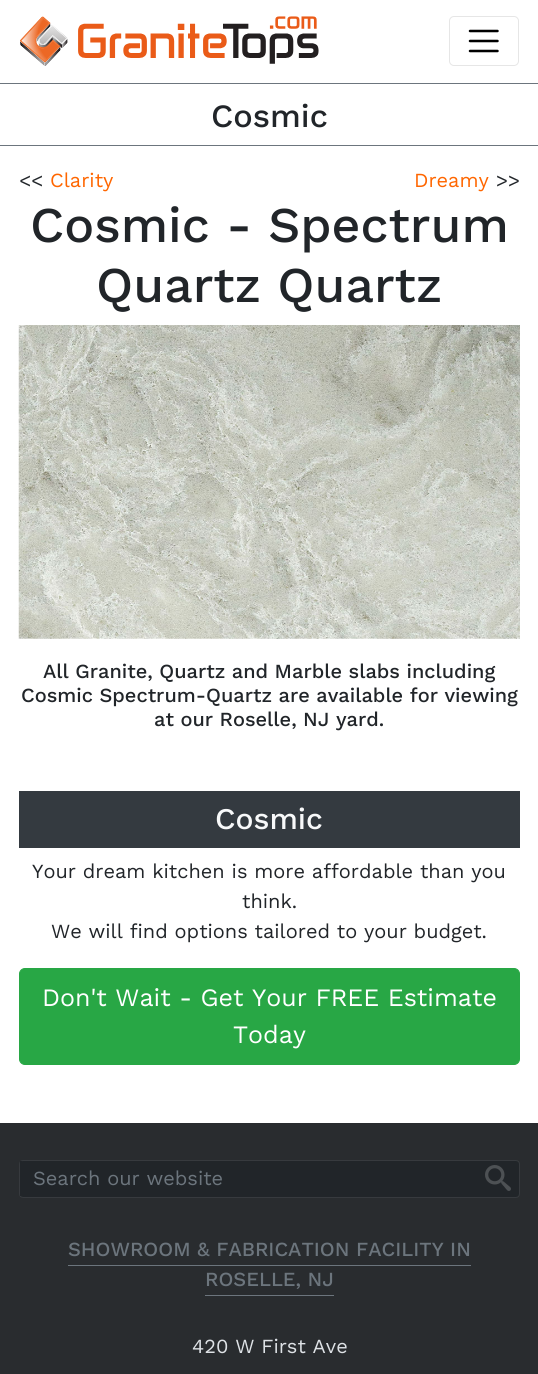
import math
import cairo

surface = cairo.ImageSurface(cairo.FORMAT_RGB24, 538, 1374)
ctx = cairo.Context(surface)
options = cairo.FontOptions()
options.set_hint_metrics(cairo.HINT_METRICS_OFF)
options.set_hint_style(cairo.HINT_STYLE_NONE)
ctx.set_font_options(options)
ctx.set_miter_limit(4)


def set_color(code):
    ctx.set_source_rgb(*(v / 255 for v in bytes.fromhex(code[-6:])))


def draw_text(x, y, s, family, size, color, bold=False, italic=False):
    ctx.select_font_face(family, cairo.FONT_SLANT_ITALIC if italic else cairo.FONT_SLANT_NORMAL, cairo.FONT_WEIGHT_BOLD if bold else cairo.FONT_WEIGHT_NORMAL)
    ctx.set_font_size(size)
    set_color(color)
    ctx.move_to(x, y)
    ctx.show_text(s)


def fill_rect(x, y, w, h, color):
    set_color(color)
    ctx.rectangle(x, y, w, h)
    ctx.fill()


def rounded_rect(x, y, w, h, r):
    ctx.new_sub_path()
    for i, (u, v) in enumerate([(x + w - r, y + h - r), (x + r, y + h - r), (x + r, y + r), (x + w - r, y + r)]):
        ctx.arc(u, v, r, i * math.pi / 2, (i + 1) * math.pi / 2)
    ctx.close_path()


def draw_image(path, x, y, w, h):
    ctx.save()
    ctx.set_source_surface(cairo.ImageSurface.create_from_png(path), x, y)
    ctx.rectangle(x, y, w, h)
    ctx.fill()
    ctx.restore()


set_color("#ffffff")
ctx.paint()
fill_rect(0, 83, 538, 1, "#6c757d")
draw_image("assets/img1.png", 20, 16, 299, 50)
rounded_rect(449.5, 16.5, 69, 49, 4.5)
set_color("#e6e6e6")
ctx.set_line_width(1)
ctx.stroke()
ctx.new_path()
ctx.move_to(470, 31)
ctx.line_to(497.5, 31)
ctx.move_to(470, 41)
ctx.line_to(497.5, 41)
ctx.move_to(470, 51)
ctx.line_to(497.5, 51)
set_color("#000000")
ctx.set_line_width(2.5)
ctx.set_line_cap(cairo.LINE_CAP_ROUND)
ctx.stroke()
fill_rect(0, 145, 538, 1, "#6c757d")
draw_text(211, 127, "Cosmic", "Work Sans Medium", 32.5, "#212529")
draw_text(19, 187, "<<", "Work Sans", 20, "#212529")
draw_text(50, 187, "Clarity", "Work Sans", 20, "#ff6600")
draw_text(414, 187, "Dreamy", "Work Sans", 20, "#ff6600")
draw_text(496, 187, ">>", "Work Sans", 20, "#212529")
draw_text(30, 242, "Cosmic - Spectrum", "Work Sans Medium", 50, "#212529")
draw_text(96, 302, "Quartz Quartz", "Work Sans Medium", 50, "#212529")
draw_image("assets/img2.png", 18, 325, 502, 314)
draw_text(43, 678, "All Granite, Quartz and Marble slabs including", "Work Sans Medium", 20, "#212529")
draw_text(21, 702, "Cosmic Spectrum-Quartz are available for viewing", "Work Sans Medium", 20, "#212529")
draw_text(154, 726, "at our Roselle, NJ yard.", "Work Sans Medium", 20, "#212529")
fill_rect(19, 791, 501, 57, "#343a40")
draw_text(215, 829, "Cosmic", "Work Sans Medium", 30, "#f8f9fa")
draw_text(32, 878, "Your dream kitchen is more affordable than you", "Work Sans", 20, "#212529")
draw_text(242, 908, "think.", "Work Sans", 20, "#212529")
draw_text(51, 938, "We will find options tailored to your budget.", "Work Sans", 20, "#212529")
set_color("#28a745")
rounded_rect(19.5, 968.5, 500, 96, 5.5)
ctx.fill_preserve()
ctx.set_line_width(1)
ctx.set_line_cap(cairo.LINE_CAP_BUTT)
ctx.stroke()
draw_text(42, 1006, "Don't Wait - Get Your FREE Estimate", "Work Sans", 25, "#ffffff")
draw_text(233, 1043, "Today", "Work Sans", 25, "#ffffff")
fill_rect(0, 1123, 538, 251, "#292c2f")
set_color("#212529")
rounded_rect(19, 1160, 501, 38, 4)
ctx.fill()
rounded_rect(19.5, 1160.5, 500, 37, 3.5)
ctx.set_source_rgba(1, 1, 1, 0.1)
ctx.stroke()
fill_rect(20, 1161, 2, 35, "#212529")
draw_text(33, 1185, "Search our website", "Work Sans", 20, "#6c757d")
draw_image("assets/img3.png", 485, 1165, 26, 26)
draw_text(68, 1256, "SHOWROOM & FABRICATION FACILITY IN", "Work Sans Medium", 20, "#6c757d")
draw_text(205, 1286, "ROSELLE, NJ", "Work Sans Medium", 20, "#6c757d")
fill_rect(68, 1265, 403, 1, "#6c757d")
fill_rect(205, 1295, 129, 1, "#6c757d")
draw_text(192, 1353, "420 W First Ave", "Work Sans", 20, "#dee2e6")
surface.write_to_png("output.png")
